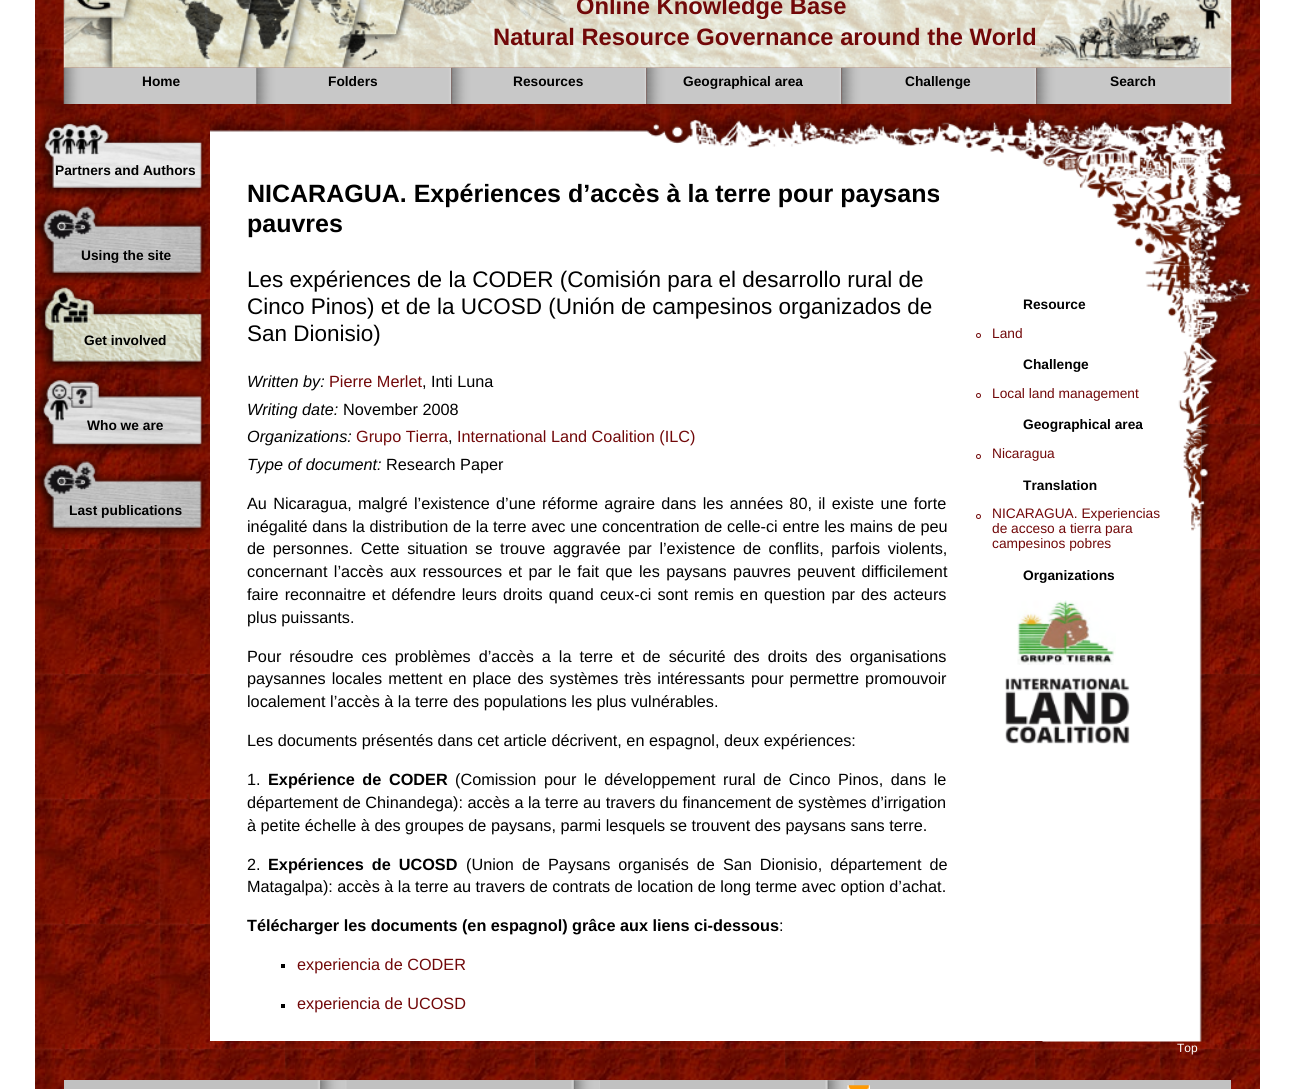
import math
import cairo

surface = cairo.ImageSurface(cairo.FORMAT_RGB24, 1293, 1089)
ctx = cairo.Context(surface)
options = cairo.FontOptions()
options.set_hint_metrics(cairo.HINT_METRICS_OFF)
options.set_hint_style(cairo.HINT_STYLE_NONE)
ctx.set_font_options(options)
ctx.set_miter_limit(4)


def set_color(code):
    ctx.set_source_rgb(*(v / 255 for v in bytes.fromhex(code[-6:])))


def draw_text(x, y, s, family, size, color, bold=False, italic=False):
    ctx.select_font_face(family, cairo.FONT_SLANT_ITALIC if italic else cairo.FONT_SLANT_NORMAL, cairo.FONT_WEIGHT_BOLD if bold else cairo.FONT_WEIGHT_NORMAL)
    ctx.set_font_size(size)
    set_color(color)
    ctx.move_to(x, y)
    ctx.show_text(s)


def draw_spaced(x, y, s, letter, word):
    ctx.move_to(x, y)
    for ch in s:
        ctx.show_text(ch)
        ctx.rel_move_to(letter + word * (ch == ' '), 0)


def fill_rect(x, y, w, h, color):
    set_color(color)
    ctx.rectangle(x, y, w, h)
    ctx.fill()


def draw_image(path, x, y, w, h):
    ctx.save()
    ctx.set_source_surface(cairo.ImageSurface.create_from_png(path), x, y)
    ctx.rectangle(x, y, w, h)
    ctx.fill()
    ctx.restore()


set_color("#ffffff")
ctx.paint()
draw_image("assets/img1.png", 35, 0, 1225, 1089)
draw_image("assets/img2.png", 63, 0, 1169, 68)
draw_text(576, 14, "Online Knowledge Base", "Liberation Sans", 23.75, "#710809", bold=True)
draw_text(493, 45, "Natural Resource Governance around the World", "Liberation Sans", 23.75, "#710809", bold=True)
draw_image("assets/img3.png", 63, 67, 196, 37)
draw_text(142, 86, "Home", "Liberation Sans", 13.75, "#000000", bold=True)
draw_image("assets/img4.png", 256, 67, 196, 37)
draw_text(328, 86, "Folders", "Liberation Sans", 13.75, "#000000", bold=True)
draw_image("assets/img5.png", 451, 67, 196, 37)
draw_text(513, 86, "Resources", "Liberation Sans", 13.75, "#000000", bold=True)
draw_image("assets/img6.png", 646, 67, 196, 37)
draw_text(683, 86, "Geographical area", "Liberation Sans", 13.75, "#000000", bold=True)
draw_image("assets/img7.png", 841, 67, 196, 37)
draw_text(905, 86, "Challenge", "Liberation Sans", 13.75, "#000000", bold=True)
draw_image("assets/img8.png", 1036, 67, 196, 37)
draw_text(1110, 86, "Search", "Liberation Sans", 13.75, "#000000", bold=True)
draw_image("assets/img9.png", 35, 117, 173, 81)
draw_text(55, 175, "Partners and Authors", "Liberation Sans", 13.75, "#000000", bold=True)
draw_image("assets/img10.png", 35, 200, 173, 83)
draw_text(81, 260, "Using the site", "Liberation Sans", 13.75, "#000000", bold=True)
draw_image("assets/img11.png", 35, 285, 173, 85)
draw_text(84, 345, "Get involved", "Liberation Sans", 13.75, "#000000", bold=True)
draw_image("assets/img12.png", 35, 373, 173, 81)
draw_text(87, 430, "Who we are", "Liberation Sans", 13.75, "#000000", bold=True)
draw_image("assets/img13.png", 35, 455, 173, 83)
draw_text(69, 515, "Last publications", "Liberation Sans", 13.75, "#000000", bold=True)
draw_image("assets/img14.png", 210, 115, 1023, 44)
draw_image("assets/img15.png", 1042, 159, 168, 883)
fill_rect(210, 159, 833, 882, "#ffffff")
draw_image("assets/img16.png", 1042, 159, 207, 107)
draw_text(247, 202, "NICARAGUA. Expériences d’accès à la terre pour paysans", "Liberation Sans", 25, "#000000", bold=True)
draw_text(247, 232, "pauvres", "Liberation Sans", 25, "#000000", bold=True)
draw_text(247, 287, "Les expériences de la CODER (Comisión para el desarrollo rural de", "Liberation Sans", 22.5, "#000000")
draw_text(247, 314, "Cinco Pinos) et de la UCOSD (Unión de campesinos organizados de", "Liberation Sans", 22.5, "#000000")
draw_text(247, 341, "San Dionisio)", "Liberation Sans", 22.5, "#000000")
draw_text(247, 387, "Written by:", "Liberation Sans", 16.25, "#000000", italic=True)
draw_text(329, 387, "Pierre Merlet", "Liberation Sans", 16.25, "#710809")
draw_text(422, 387, ", Inti Luna", "Liberation Sans", 16.25, "#000000")
draw_text(247, 415, "Writing date:", "Liberation Sans", 16.25, "#000000", italic=True)
draw_text(343, 415, "November 2008", "Liberation Sans", 16.25, "#000000")
draw_text(247, 442, "Organizations:", "Liberation Sans", 16.25, "#000000", italic=True)
draw_text(356, 442, "Grupo Tierra", "Liberation Sans", 16.25, "#710809")
draw_text(448, 442, ",", "Liberation Sans", 16.25, "#000000")
draw_text(457, 442, "International Land Coalition (ILC)", "Liberation Sans", 16.25, "#710809")
draw_text(247, 470, "Type of document:", "Liberation Sans", 16.25, "#000000", italic=True)
draw_text(386, 470, "Research Paper", "Liberation Sans", 16.25, "#000000")
draw_spaced(247, 509, "Au Nicaragua, malgré l’existence d’une réforme agraire dans les années 80, il existe une forte", 0, 1.75)
draw_spaced(247, 532, "inégalité dans la distribution de la terre avec une concentration de celle-ci entre les mains de peu", 0, 0.2)
draw_spaced(247, 554, "de personnes. Cette situation se trouve aggravée par l’existence de conflits, parfois violents,", 0, 3.1)
draw_spaced(247, 577, "concernant l’accès aux ressources et par le fait que les paysans pauvres peuvent difficilement", 0, 1.9)
draw_spaced(247, 600, "faire reconnaitre et défendre leurs droits quand ceux-ci sont remis en question par des acteurs", 0, 1.5)
draw_text(247, 623, "plus puissants.", "Liberation Sans", 16.25, "#000000")
draw_spaced(247, 662, "Pour résoudre ces problèmes d’accès a la terre et de sécurité des droits des organisations", 0, 3.5)
draw_spaced(247, 684, "paysannes locales mettent en place des systèmes très intéressants pour permettre promouvoir", 0, 1.5)
draw_text(247, 707, "localement l’accès à la terre des populations les plus vulnérables.", "Liberation Sans", 16.25, "#000000")
draw_text(247, 746, "Les documents présentés dans cet article décrivent, en espagnol, deux expériences:", "Liberation Sans", 16.25, "#000000")
draw_text(247, 785, "1.", "Liberation Sans", 16.25, "#000000")
ctx.select_font_face("Liberation Sans", cairo.FONT_SLANT_NORMAL, cairo.FONT_WEIGHT_BOLD)
draw_spaced(268, 785, "Expérience de CODER", 0, 3.1)
ctx.select_font_face("Liberation Sans")
draw_spaced(455, 785, "(Comission pour le développement rural de Cinco Pinos, dans le", 0, 3.1)
draw_text(247, 808, "département de Chinandega): accès a la terre au travers du financement de systèmes d’irrigation", "Liberation Sans", 16.25, "#000000")
draw_text(247, 831, "à petite échelle à des groupes de paysans, parmi lesquels se trouvent des paysans sans terre.", "Liberation Sans", 16.25, "#000000")
draw_text(247, 870, "2.", "Liberation Sans", 16.25, "#000000")
ctx.select_font_face("Liberation Sans", cairo.FONT_SLANT_NORMAL, cairo.FONT_WEIGHT_BOLD)
draw_spaced(268, 870, "Expériences de UCOSD", 0, 3.5)
ctx.select_font_face("Liberation Sans")
draw_spaced(466, 870, "(Union de Paysans organisés de San Dionisio, département de", 0, 3.5)
draw_text(247, 892, "Matagalpa): accès à la terre au travers de contrats de location de long terme avec option d’achat.", "Liberation Sans", 16.25, "#000000")
draw_text(247, 931, "Télécharger les documents (en espagnol) grâce aux liens ci-dessous", "Liberation Sans", 16.25, "#000000", bold=True)
draw_text(779, 931, ":", "Liberation Sans", 16.25, "#000000")
fill_rect(281, 964, 4, 4, "#000000")
draw_text(297, 970, "experiencia de CODER", "Liberation Sans", 16.25, "#710809")
fill_rect(281, 1004, 4, 4, "#000000")
draw_text(297, 1009, "experiencia de UCOSD", "Liberation Sans", 16.25, "#710809")
draw_text(1023, 309, "Resource", "Liberation Sans", 13.75, "#000000", bold=True)
ctx.new_path()
ctx.arc(978.5, 335.5, 2, 0, 2 * math.pi)
set_color("#710809")
ctx.set_line_width(1)
ctx.stroke()
draw_text(992, 338, "Land", "Liberation Sans", 13.75, "#710809")
draw_text(1023, 369, "Challenge", "Liberation Sans", 13.75, "#000000", bold=True)
ctx.new_path()
ctx.arc(978.5, 395.5, 2, 0, 2 * math.pi)
set_color("#710809")
ctx.stroke()
draw_text(992, 398, "Local land management", "Liberation Sans", 13.75, "#710809")
draw_text(1023, 429, "Geographical area", "Liberation Sans", 13.75, "#000000", bold=True)
ctx.new_path()
ctx.arc(978.5, 456.5, 2, 0, 2 * math.pi)
set_color("#710809")
ctx.stroke()
draw_text(992, 458, "Nicaragua", "Liberation Sans", 13.75, "#710809")
draw_text(1023, 490, "Translation", "Liberation Sans", 13.75, "#000000", bold=True)
ctx.new_path()
ctx.arc(978.5, 516.5, 2, 0, 2 * math.pi)
set_color("#710809")
ctx.stroke()
draw_text(992, 518, "NICARAGUA. Experiencias", "Liberation Sans", 13.75, "#710809")
draw_text(992, 533, "de acceso a tierra para", "Liberation Sans", 13.75, "#710809")
draw_text(992, 548, "campesinos pobres", "Liberation Sans", 13.75, "#710809")
draw_text(1023, 580, "Organizations", "Liberation Sans", 13.75, "#000000", bold=True)
draw_image("assets/img17.png", 1017, 600, 99, 65)
draw_image("assets/img18.png", 1005, 677, 125, 67)
draw_image("assets/img19.png", 1145, 265, 110, 54)
draw_image("assets/img20.png", 1177, 319, 48, 219)
draw_text(1177, 1052, "Top", "Liberation Sans", 12, "#ffffff")
fill_rect(64, 1080, 1167, 9, "#c1c1c1")
draw_image("assets/img21.png", 317, 1080, 30, 9)
draw_image("assets/img22.png", 571, 1080, 29, 9)
draw_image("assets/img23.png", 825, 1080, 29, 9)
draw_image("assets/img24.png", 847, 1085, 23, 4)
surface.write_to_png("output.png")
